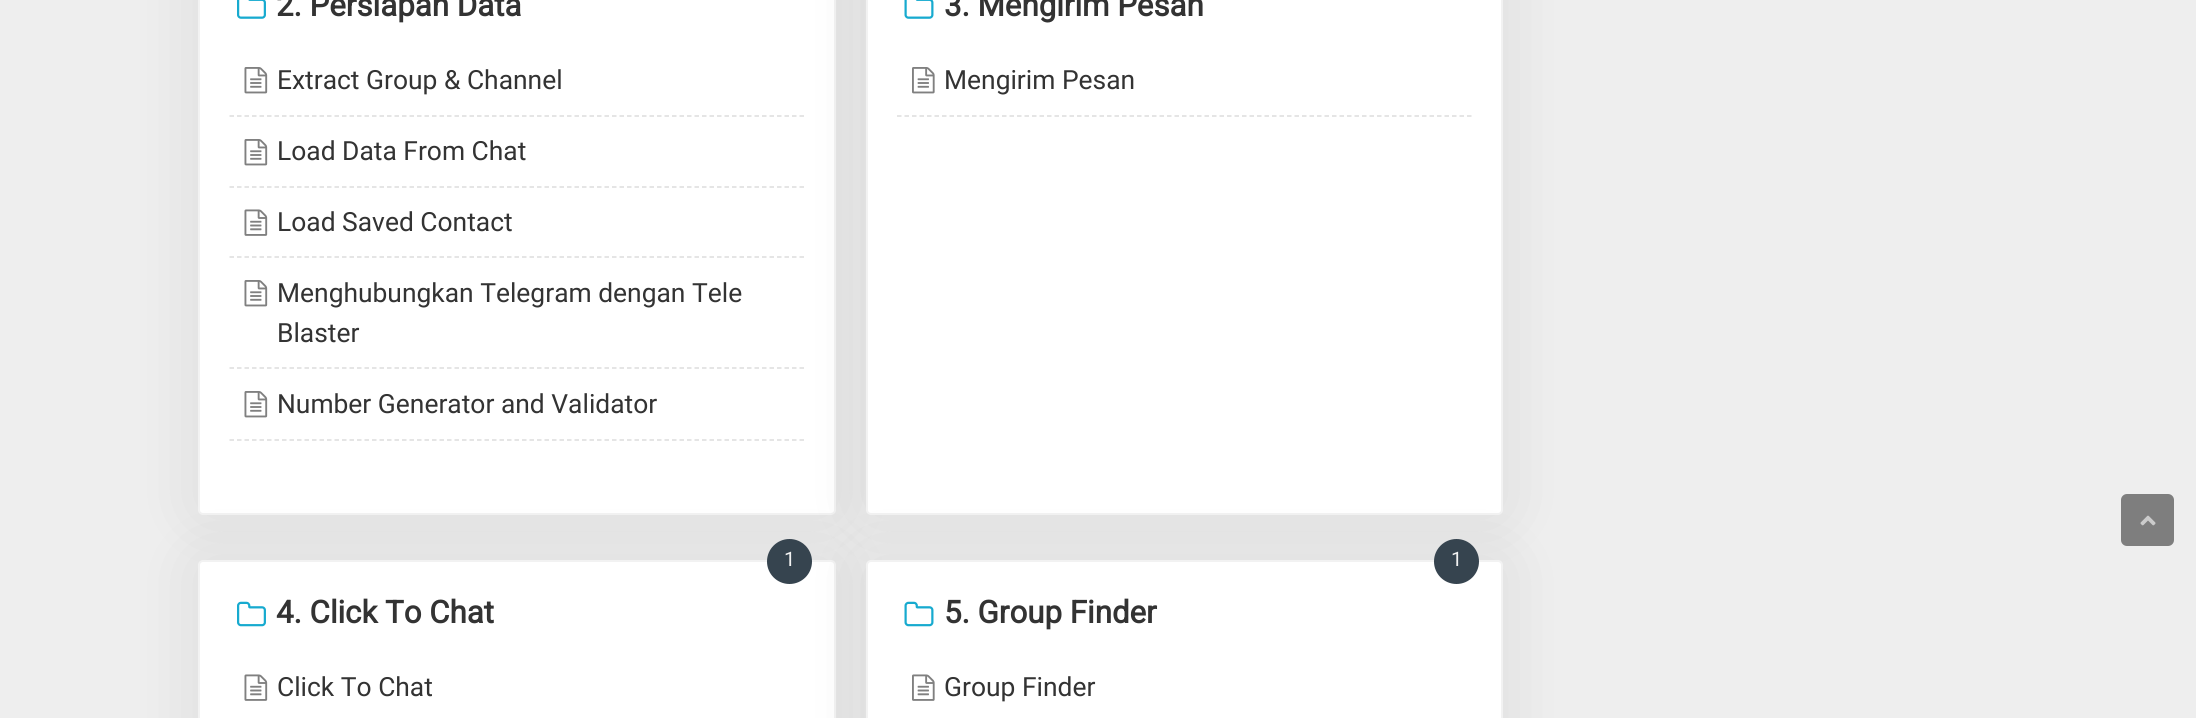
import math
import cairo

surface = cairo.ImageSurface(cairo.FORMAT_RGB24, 2196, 718)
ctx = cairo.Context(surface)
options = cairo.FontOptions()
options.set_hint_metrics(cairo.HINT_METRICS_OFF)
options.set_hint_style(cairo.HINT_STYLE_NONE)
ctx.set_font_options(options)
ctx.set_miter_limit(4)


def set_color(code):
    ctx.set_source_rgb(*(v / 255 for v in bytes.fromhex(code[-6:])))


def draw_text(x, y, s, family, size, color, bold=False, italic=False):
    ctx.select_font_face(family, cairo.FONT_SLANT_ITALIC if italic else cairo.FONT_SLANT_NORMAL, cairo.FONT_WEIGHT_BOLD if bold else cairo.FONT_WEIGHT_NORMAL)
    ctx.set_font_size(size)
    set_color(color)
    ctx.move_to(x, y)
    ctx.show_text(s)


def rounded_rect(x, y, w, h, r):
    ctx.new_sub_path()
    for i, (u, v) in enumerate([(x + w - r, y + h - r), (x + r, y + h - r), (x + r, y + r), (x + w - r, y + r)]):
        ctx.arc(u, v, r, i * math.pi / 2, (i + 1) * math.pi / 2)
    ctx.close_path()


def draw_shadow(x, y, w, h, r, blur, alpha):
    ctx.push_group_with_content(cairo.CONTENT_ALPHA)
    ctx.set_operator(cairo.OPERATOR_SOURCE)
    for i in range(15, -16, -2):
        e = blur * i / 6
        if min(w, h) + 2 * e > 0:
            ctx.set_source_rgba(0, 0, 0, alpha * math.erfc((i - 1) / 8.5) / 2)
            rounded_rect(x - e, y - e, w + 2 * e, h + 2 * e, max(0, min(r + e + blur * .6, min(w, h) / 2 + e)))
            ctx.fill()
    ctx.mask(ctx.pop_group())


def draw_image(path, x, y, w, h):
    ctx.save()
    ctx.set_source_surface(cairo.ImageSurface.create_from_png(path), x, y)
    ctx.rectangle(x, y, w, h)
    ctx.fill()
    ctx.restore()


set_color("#eeeeee")
ctx.paint()
set_color("#000000")
draw_shadow(198, -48, 638, 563, 5, 34, 0.08)
set_color("#ffffff")
rounded_rect(199, -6, 636, 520, 4)
ctx.fill_preserve()
set_color("#f2f2f2")
ctx.stroke()
draw_image("assets/img1.png", 237, 0, 29, 19)
draw_text(276, 16, "2. Persiapan Data", "Roboto", 31.25, "#333333", bold=True)
ctx.new_path()
ctx.move_to(229.5, 116)
ctx.line_to(804, 116)
set_color("#dddddd")
ctx.set_line_width(1.5)
ctx.set_dash([4.5, 3])
ctx.stroke()
draw_image("assets/img2.png", 244, 67, 24, 27)
draw_text(277, 89, "Extract Group & Channel", "Roboto", 26.4, "#333333")
ctx.new_path()
ctx.move_to(229.5, 187)
ctx.line_to(804, 187)
set_color("#dddddd")
ctx.stroke()
draw_image("assets/img2.png", 244, 139, 24, 27)
draw_text(277, 160, "Load Data From Chat", "Roboto", 26.4, "#333333")
ctx.new_path()
ctx.move_to(229.5, 257)
ctx.line_to(804, 257)
set_color("#dddddd")
ctx.stroke()
draw_image("assets/img3.png", 244, 209, 24, 27)
draw_text(277, 231, "Load Saved Contact", "Roboto", 26.4, "#333333")
ctx.new_path()
ctx.move_to(229.5, 368)
ctx.line_to(804, 368)
set_color("#dddddd")
ctx.stroke()
draw_image("assets/img2.png", 244, 280, 24, 27)
draw_text(277, 302, "Menghubungkan Telegram dengan Tele", "Roboto", 26.4, "#333333")
draw_text(277, 342, "Blaster", "Roboto", 26.4, "#333333")
ctx.new_path()
ctx.move_to(229.5, 440)
ctx.line_to(804, 440)
set_color("#dddddd")
ctx.stroke()
draw_image("assets/img2.png", 244, 391, 24, 27)
draw_text(277, 413, "Number Generator and Validator", "Roboto", 26.4, "#333333")
set_color("#000000")
draw_shadow(866, -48, 637, 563, 5, 34, 0.08)
set_color("#ffffff")
rounded_rect(867, -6, 635, 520, 4)
ctx.fill_preserve()
set_color("#f2f2f2")
ctx.set_line_width(2)
ctx.set_dash([])
ctx.stroke()
draw_image("assets/img4.png", 904, 0, 30, 19)
draw_text(944, 16, "3. Mengirim Pesan", "Roboto", 31.25, "#333333", bold=True)
ctx.new_path()
ctx.move_to(897, 116)
ctx.line_to(1471.5, 116)
set_color("#dddddd")
ctx.set_line_width(1.5)
ctx.set_dash([4.5, 3])
ctx.stroke()
draw_image("assets/img5.png", 912, 67, 23, 27)
draw_text(944, 89, "Mengirim Pesan", "Roboto", 26.4, "#333333")
set_color("#000000")
draw_shadow(198, 560, 638, 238, 5, 34, 0.08)
set_color("#ffffff")
rounded_rect(199, 561, 636, 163, 4)
ctx.fill_preserve()
set_color("#f2f2f2")
ctx.set_line_width(2)
ctx.set_dash([])
ctx.stroke()
set_color("#36444f")
ctx.arc(789.5, 561.5, 22.5, 0, 2 * math.pi)
ctx.fill()
draw_text(784, 566, "1", "Roboto", 20, "#f2f2f2")
draw_image("assets/img6.png", 237, 601, 29, 26)
draw_text(276, 623, "4. Click To Chat", "Roboto", 31.25, "#333333", bold=True)
draw_image("assets/img3.png", 244, 674, 24, 27)
draw_text(277, 696, "Click To Chat", "Roboto", 26.4, "#333333")
set_color("#000000")
draw_shadow(866, 560, 637, 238, 5, 34, 0.08)
set_color("#ffffff")
rounded_rect(867, 561, 635, 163, 4)
ctx.fill_preserve()
set_color("#f2f2f2")
ctx.stroke()
set_color("#36444f")
ctx.arc(1456.5, 561.5, 22.5, 0, 2 * math.pi)
ctx.fill()
draw_text(1451, 566, "1", "Roboto", 20, "#f2f2f2")
draw_image("assets/img7.png", 904, 601, 30, 26)
draw_text(944, 623, "5. Group Finder", "Roboto", 31.25, "#333333", bold=True)
draw_image("assets/img8.png", 912, 674, 23, 27)
draw_text(944, 696, "Group Finder", "Roboto", 26.4, "#333333")
set_color("#7e7e7e")
rounded_rect(2121, 494, 53, 52, 6)
ctx.fill()
draw_image("assets/img9.png", 2140, 515, 16, 11)
surface.write_to_png("output.png")
